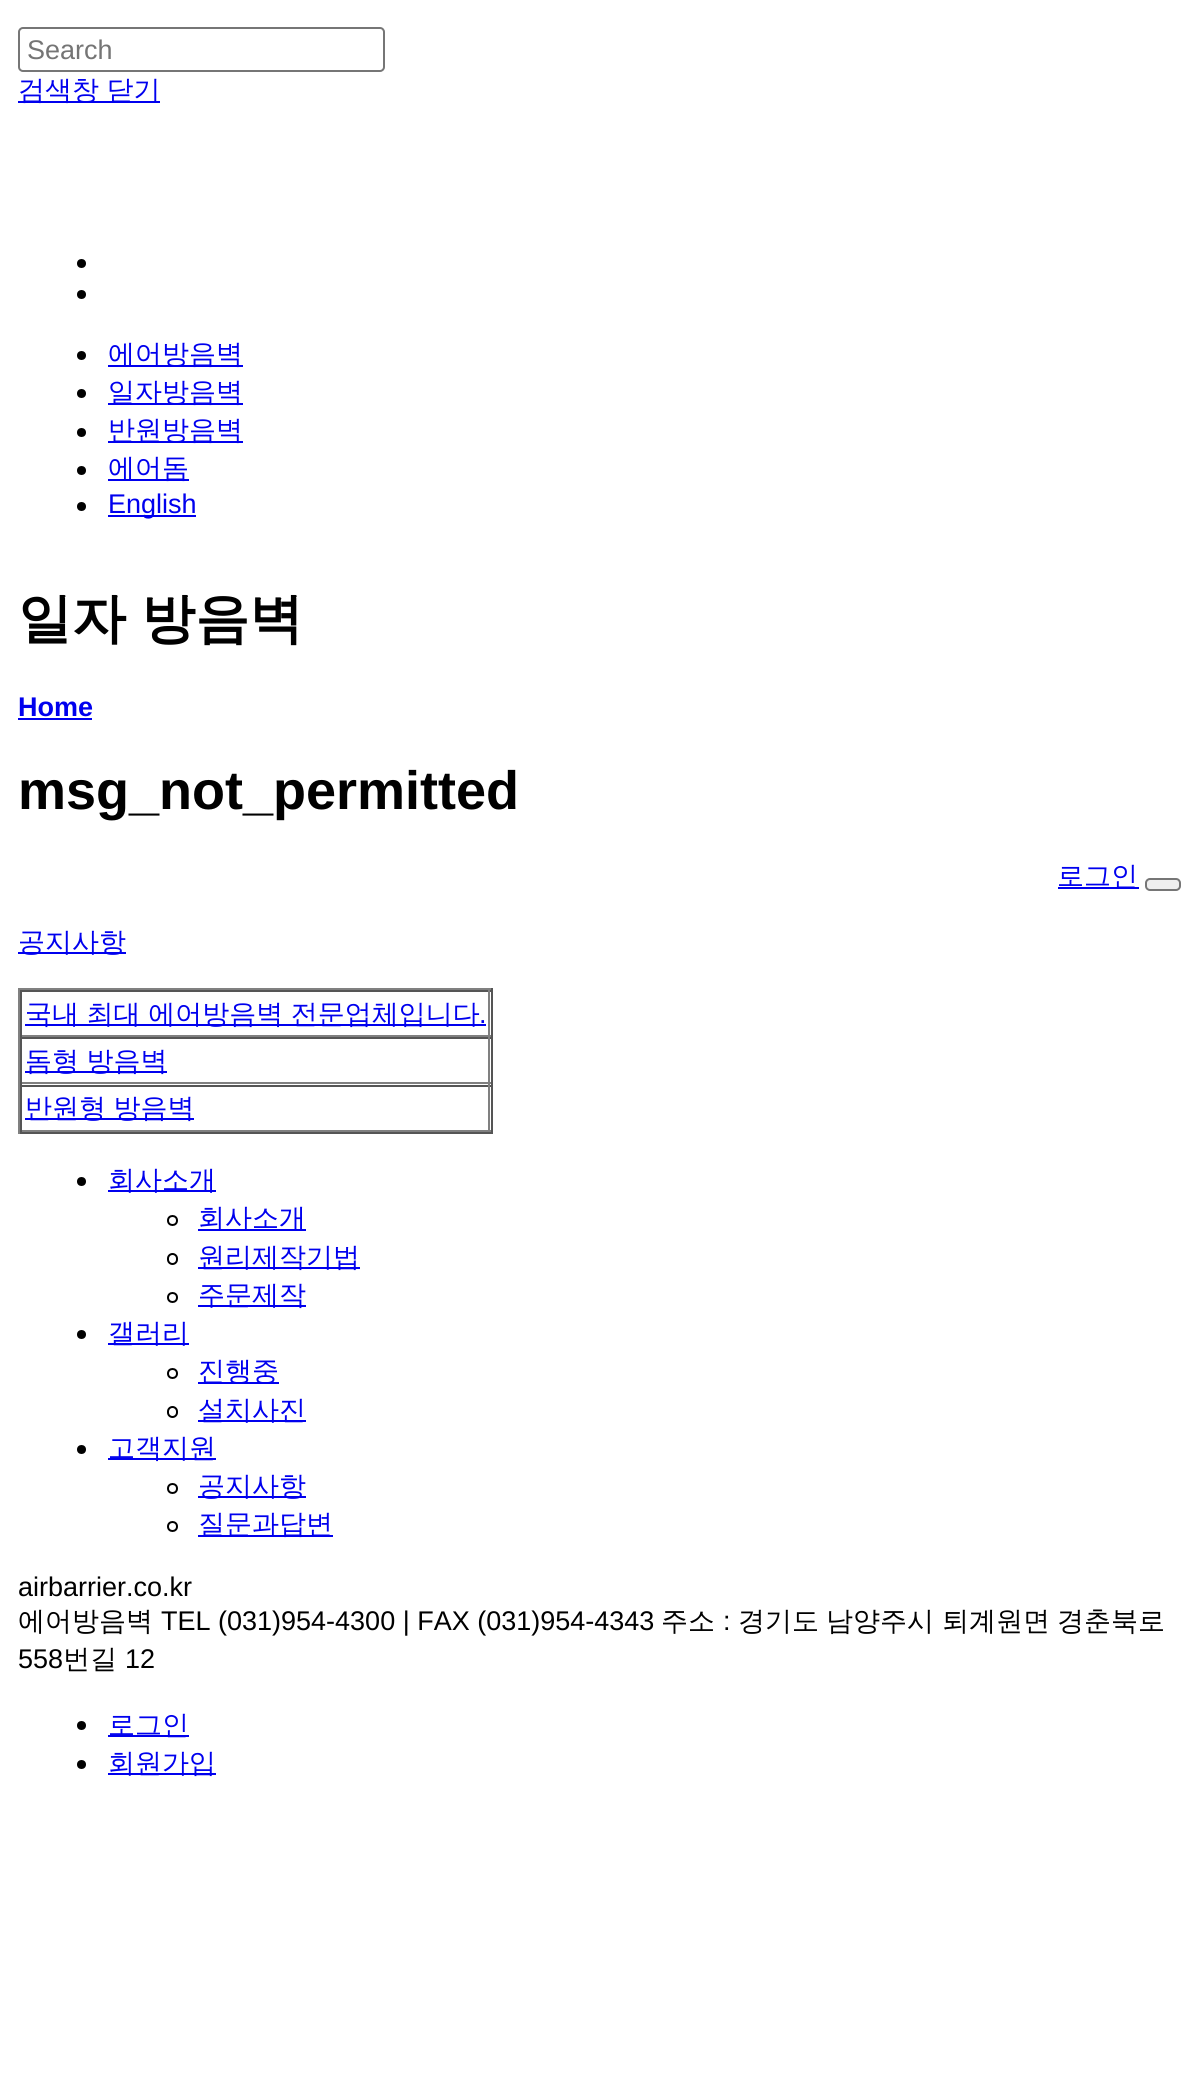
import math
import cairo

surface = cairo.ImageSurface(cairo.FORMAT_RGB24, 1198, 2095)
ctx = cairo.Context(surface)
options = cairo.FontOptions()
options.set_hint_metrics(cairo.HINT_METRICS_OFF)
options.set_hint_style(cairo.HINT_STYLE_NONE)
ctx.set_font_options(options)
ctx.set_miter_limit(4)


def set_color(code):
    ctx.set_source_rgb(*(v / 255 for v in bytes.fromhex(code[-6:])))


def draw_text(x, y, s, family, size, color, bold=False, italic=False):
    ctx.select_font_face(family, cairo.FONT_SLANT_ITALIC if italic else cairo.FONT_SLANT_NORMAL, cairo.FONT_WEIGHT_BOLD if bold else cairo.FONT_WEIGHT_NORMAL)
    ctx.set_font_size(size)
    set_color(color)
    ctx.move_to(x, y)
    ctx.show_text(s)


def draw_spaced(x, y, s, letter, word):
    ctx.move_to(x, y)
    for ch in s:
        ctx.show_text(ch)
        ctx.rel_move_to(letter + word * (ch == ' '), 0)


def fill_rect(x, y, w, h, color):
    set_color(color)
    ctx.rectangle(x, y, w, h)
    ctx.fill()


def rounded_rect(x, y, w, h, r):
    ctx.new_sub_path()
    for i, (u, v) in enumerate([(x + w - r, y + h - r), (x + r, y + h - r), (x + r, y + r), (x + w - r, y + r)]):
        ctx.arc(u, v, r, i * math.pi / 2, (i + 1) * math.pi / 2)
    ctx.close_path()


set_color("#ffffff")
ctx.paint()
rounded_rect(19, 28, 365, 43, 4)
set_color("#767676")
ctx.stroke()
draw_text(27, 59, "Search", "Liberation Sans", 27, "#757575")
fill_rect(18, 101, 142, 2, "#0000ee")
ctx.select_font_face("WenQuanYi Zen Hei Medium")
draw_spaced(18, 99, "검색창 닫기", 0, -0.5)
set_color("#000000")
ctx.new_path()
ctx.arc(81.5, 263.5, 4.5, 0, 2 * math.pi)
ctx.fill()
ctx.arc(81.5, 294.5, 4.5, 0, 2 * math.pi)
ctx.fill()
ctx.arc(81.5, 355.5, 4.5, 0, 2 * math.pi)
ctx.fill()
fill_rect(108, 365, 135, 2, "#0000ee")
draw_text(108, 363, "에어방음벽", "WenQuanYi Zen Hei Medium", 27, "#0000ee")
set_color("#000000")
ctx.new_path()
ctx.arc(81.5, 393.5, 4.5, 0, 2 * math.pi)
ctx.fill()
fill_rect(108, 403, 135, 2, "#0000ee")
draw_text(108, 401, "일자방음벽", "WenQuanYi Zen Hei Medium", 27, "#0000ee")
set_color("#000000")
ctx.new_path()
ctx.arc(81.5, 432.5, 4.5, 0, 2 * math.pi)
ctx.fill()
fill_rect(108, 441, 135, 2, "#0000ee")
draw_text(108, 439, "반원방음벽", "WenQuanYi Zen Hei Medium", 27, "#0000ee")
set_color("#000000")
ctx.new_path()
ctx.arc(81.5, 470.5, 4.5, 0, 2 * math.pi)
ctx.fill()
fill_rect(108, 479, 81, 2, "#0000ee")
draw_text(108, 477, "에어돔", "WenQuanYi Zen Hei Medium", 27, "#0000ee")
set_color("#000000")
ctx.new_path()
ctx.arc(81.5, 506.5, 4.5, 0, 2 * math.pi)
ctx.fill()
fill_rect(108, 515, 88, 2, "#0000ee")
draw_text(108, 513, "English", "Liberation Sans", 27, "#0000ee")
ctx.select_font_face("WenQuanYi Zen Hei", cairo.FONT_SLANT_NORMAL, cairo.FONT_WEIGHT_BOLD)
ctx.set_font_size(54)
set_color("#000000")
draw_spaced(18, 637, "일자 방음벽", 0, -1)
draw_text(18, 716, "Home", "Liberation Sans", 27, "#0000ee", bold=True)
fill_rect(18, 718, 74, 2, "#0000ee")
draw_text(18, 809, "msg_not_permitted", "Liberation Sans", 54, "#000000", bold=True)
fill_rect(1058, 887, 81, 2, "#0000ee")
draw_text(1057, 885, "로그인", "WenQuanYi Zen Hei Medium", 27, "#0000ee")
set_color("#efefef")
rounded_rect(1146, 879, 34, 11, 4)
ctx.fill_preserve()
set_color("#767676")
ctx.stroke()
fill_rect(18, 952, 108, 2, "#0000ee")
draw_text(18, 951, "공지사항", "WenQuanYi Zen Hei Medium", 27, "#0000ee")
fill_rect(18, 988, 475, 2, "#808080")
fill_rect(491, 988, 2, 146, "#555555")
fill_rect(18, 1132, 475, 2, "#555555")
fill_rect(18, 988, 2, 146, "#808080")
fill_rect(20, 990, 471, 2, "#555555")
fill_rect(488, 990, 2, 47, "#808080")
fill_rect(20, 1035, 471, 2, "#808080")
fill_rect(20, 990, 2, 47, "#555555")
fill_rect(25, 1024, 461, 2, "#0000ee")
draw_spaced(25, 1023, "국내 최대 에어방음벽 전문업체입니다", 0, -0.5)
draw_text(479, 1023, ".", "Liberation Sans", 27, "#0000ee")
fill_rect(20, 1037, 471, 2, "#555555")
fill_rect(488, 1037, 2, 48, "#808080")
fill_rect(20, 1082, 471, 2, "#808080")
fill_rect(20, 1037, 2, 48, "#555555")
fill_rect(25, 1071, 142, 2, "#0000ee")
ctx.select_font_face("WenQuanYi Zen Hei Medium")
draw_spaced(25, 1070, "돔형 방음벽", 0, -0.5)
fill_rect(20, 1085, 471, 2, "#555555")
fill_rect(488, 1085, 2, 47, "#808080")
fill_rect(20, 1130, 471, 2, "#808080")
fill_rect(20, 1085, 2, 47, "#555555")
fill_rect(25, 1118, 169, 2, "#0000ee")
draw_spaced(25, 1117, "반원형 방음벽", 0, -0.5)
set_color("#000000")
ctx.new_path()
ctx.arc(81.5, 1181.5, 4.5, 0, 2 * math.pi)
ctx.fill()
fill_rect(108, 1190, 108, 2, "#0000ee")
draw_text(108, 1189, "회사소개", "WenQuanYi Zen Hei Medium", 27, "#0000ee")
ctx.new_path()
ctx.arc(172.5, 1220.5, 4.5, 0, 2 * math.pi)
set_color("#000000")
ctx.stroke()
fill_rect(198, 1229, 108, 2, "#0000ee")
draw_text(198, 1227, "회사소개", "WenQuanYi Zen Hei Medium", 27, "#0000ee")
rounded_rect(168, 1254, 9, 10, 4.5)
set_color("#000000")
ctx.stroke()
fill_rect(198, 1267, 162, 2, "#0000ee")
draw_text(198, 1266, "원리제작기법", "WenQuanYi Zen Hei Medium", 27, "#0000ee")
ctx.new_path()
ctx.arc(172.5, 1297.5, 4.5, 0, 2 * math.pi)
set_color("#000000")
ctx.stroke()
fill_rect(198, 1305, 108, 2, "#0000ee")
draw_text(198, 1304, "주문제작", "WenQuanYi Zen Hei Medium", 27, "#0000ee")
set_color("#000000")
ctx.new_path()
ctx.arc(81.5, 1334.5, 4.5, 0, 2 * math.pi)
ctx.fill()
fill_rect(108, 1343, 81, 2, "#0000ee")
draw_text(108, 1342, "갤러리", "WenQuanYi Zen Hei Medium", 27, "#0000ee")
ctx.new_path()
ctx.arc(172.5, 1373.5, 4.5, 0, 2 * math.pi)
set_color("#000000")
ctx.stroke()
fill_rect(198, 1382, 81, 2, "#0000ee")
draw_text(198, 1380, "진행중", "WenQuanYi Zen Hei Medium", 27, "#0000ee")
rounded_rect(168, 1407, 9, 10, 4.5)
set_color("#000000")
ctx.stroke()
fill_rect(198, 1420, 108, 2, "#0000ee")
draw_text(198, 1419, "설치사진", "WenQuanYi Zen Hei Medium", 27, "#0000ee")
set_color("#000000")
ctx.new_path()
ctx.arc(81.5, 1449.5, 4.5, 0, 2 * math.pi)
ctx.fill()
fill_rect(108, 1458, 108, 2, "#0000ee")
draw_text(108, 1457, "고객지원", "WenQuanYi Zen Hei Medium", 27, "#0000ee")
ctx.new_path()
ctx.arc(172.5, 1488.5, 4.5, 0, 2 * math.pi)
set_color("#000000")
ctx.stroke()
fill_rect(198, 1496, 108, 2, "#0000ee")
draw_text(198, 1495, "공지사항", "WenQuanYi Zen Hei Medium", 27, "#0000ee")
ctx.new_path()
ctx.arc(172.5, 1526.5, 4.5, 0, 2 * math.pi)
set_color("#000000")
ctx.stroke()
fill_rect(198, 1535, 135, 2, "#0000ee")
draw_text(198, 1533, "질문과답변", "WenQuanYi Zen Hei Medium", 27, "#0000ee")
draw_text(18, 1596, "airbarrier.co.kr", "Liberation Sans", 27, "#000000")
draw_text(18, 1630, "에어방음벽", "WenQuanYi Zen Hei Medium", 27, "#000000")
draw_text(161, 1630, "TEL (031)954-4300 | FAX (031)954-4343", "Liberation Sans", 27, "#000000")
draw_text(661, 1630, "주소", "WenQuanYi Zen Hei Medium", 27, "#000000")
draw_text(723, 1630, ":", "Liberation Sans", 27, "#000000")
draw_text(738, 1630, "경기도", "WenQuanYi Zen Hei Medium", 27, "#000000")
draw_text(826, 1630, "남양주시", "WenQuanYi Zen Hei Medium", 27, "#000000")
draw_text(942, 1630, "퇴계원면", "WenQuanYi Zen Hei Medium", 27, "#000000")
draw_text(1057, 1630, "경춘북로", "WenQuanYi Zen Hei Medium", 27, "#000000")
draw_text(18, 1668, "558", "Liberation Sans", 27, "#000000")
draw_text(63, 1668, "번길", "WenQuanYi Zen Hei Medium", 27, "#000000")
draw_text(125, 1668, "12", "Liberation Sans", 27, "#000000")
ctx.new_path()
ctx.arc(81.5, 1725.5, 4.5, 0, 2 * math.pi)
ctx.fill()
fill_rect(108, 1735, 81, 2, "#0000ee")
draw_text(108, 1734, "로그인", "WenQuanYi Zen Hei Medium", 27, "#0000ee")
set_color("#000000")
ctx.new_path()
ctx.arc(81.5, 1764.5, 4.5, 0, 2 * math.pi)
ctx.fill()
fill_rect(108, 1773, 108, 2, "#0000ee")
draw_text(108, 1772, "회원가입", "WenQuanYi Zen Hei Medium", 27, "#0000ee")
surface.write_to_png("output.png")
